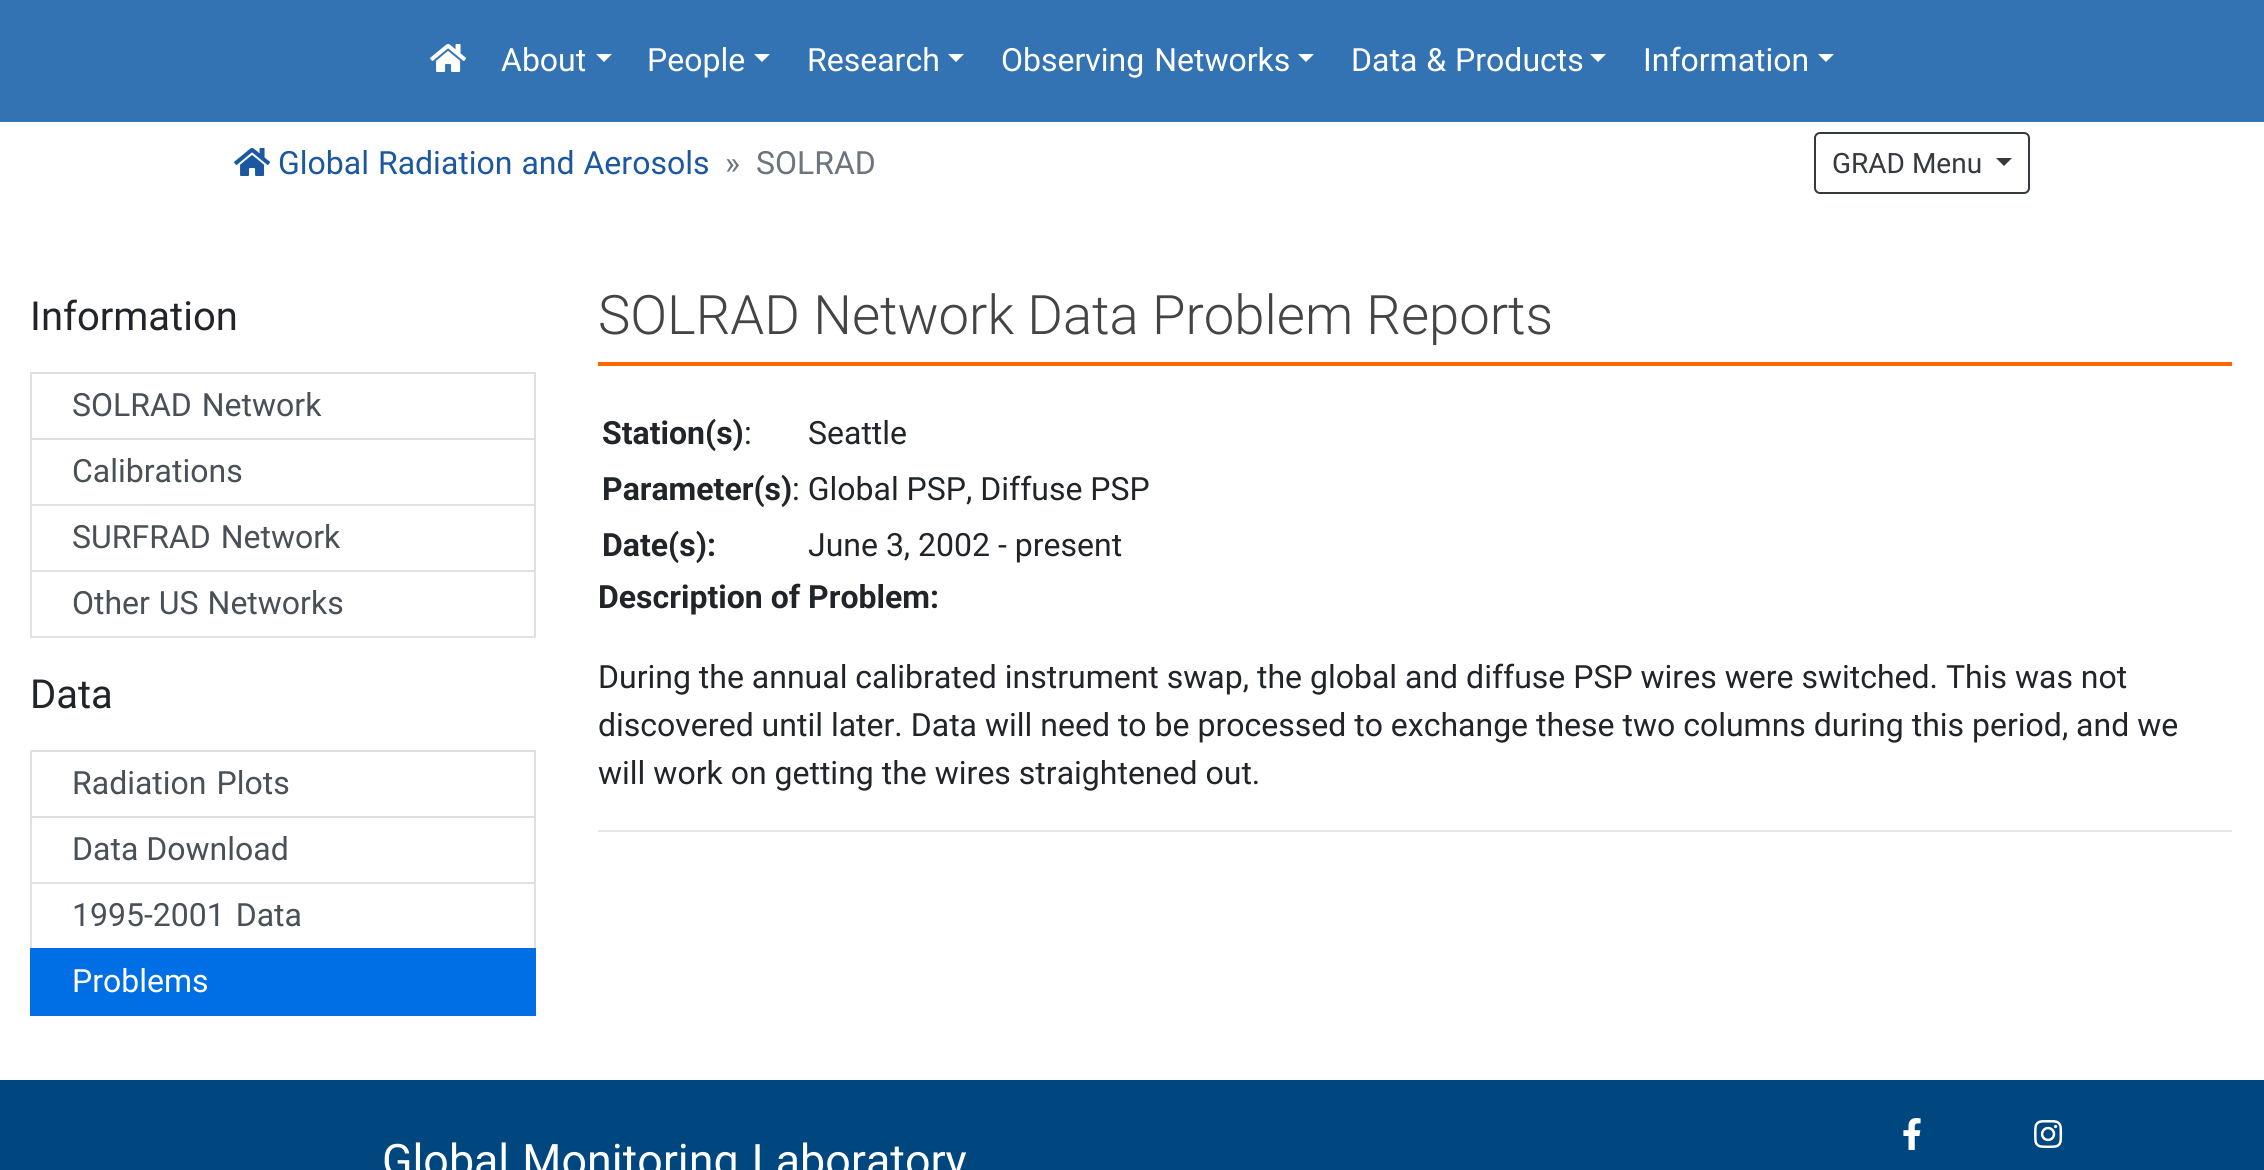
import math
import cairo

surface = cairo.ImageSurface(cairo.FORMAT_RGB24, 2264, 1170)
ctx = cairo.Context(surface)
options = cairo.FontOptions()
options.set_hint_metrics(cairo.HINT_METRICS_OFF)
options.set_hint_style(cairo.HINT_STYLE_NONE)
ctx.set_font_options(options)
ctx.set_miter_limit(4)


def set_color(code):
    ctx.set_source_rgb(*(v / 255 for v in bytes.fromhex(code[-6:])))


def draw_text(x, y, s, family, size, color, bold=False, italic=False):
    ctx.select_font_face(family, cairo.FONT_SLANT_ITALIC if italic else cairo.FONT_SLANT_NORMAL, cairo.FONT_WEIGHT_BOLD if bold else cairo.FONT_WEIGHT_NORMAL)
    ctx.set_font_size(size)
    set_color(color)
    ctx.move_to(x, y)
    ctx.show_text(s)


def draw_spaced(x, y, s, letter, word):
    ctx.move_to(x, y)
    for ch in s:
        ctx.show_text(ch)
        ctx.rel_move_to(letter + word * (ch == ' '), 0)


def fill_rect(x, y, w, h, color):
    set_color(color)
    ctx.rectangle(x, y, w, h)
    ctx.fill()


def rounded_rect(x, y, w, h, r):
    ctx.new_sub_path()
    for i, (u, v) in enumerate([(x + w - r, y + h - r), (x + r, y + h - r), (x + r, y + r), (x + w - r, y + r)]):
        ctx.arc(u, v, r, i * math.pi / 2, (i + 1) * math.pi / 2)
    ctx.close_path()


def draw_image(path, x, y, w, h):
    ctx.save()
    ctx.set_source_surface(cairo.ImageSurface.create_from_png(path), x, y)
    ctx.rectangle(x, y, w, h)
    ctx.fill()
    ctx.restore()


set_color("#ffffff")
ctx.paint()
fill_rect(0, 0, 2264, 122, "#3373b3")
draw_image("assets/img1.png", 430, 44, 36, 28)
draw_text(501, 71, "About", "Roboto", 32, "#ffffff")
ctx.new_path()
ctx.move_to(596, 54)
ctx.line_to(612, 54)
ctx.line_to(604, 62)
ctx.close_path()
ctx.fill()
draw_text(647, 71, "People", "Roboto", 32, "#ffffff")
ctx.new_path()
ctx.move_to(754, 54)
ctx.line_to(770, 54)
ctx.line_to(762, 62)
ctx.close_path()
ctx.fill()
draw_text(807, 71, "Research", "Roboto", 32, "#ffffff")
ctx.new_path()
ctx.move_to(948, 54)
ctx.line_to(964, 54)
ctx.line_to(956, 62)
ctx.close_path()
ctx.fill()
draw_spaced(1001, 71, "Observing Networks", 0, 2)
ctx.new_path()
ctx.move_to(1298, 54)
ctx.line_to(1314, 54)
ctx.line_to(1306, 62)
ctx.close_path()
ctx.fill()
draw_spaced(1351, 71, "Data & Products", 0, 1)
ctx.new_path()
ctx.move_to(1590, 54)
ctx.line_to(1606, 54)
ctx.line_to(1598, 62)
ctx.close_path()
ctx.fill()
draw_text(1643, 71, "Information", "Roboto", 32, "#ffffff")
ctx.new_path()
ctx.move_to(1818, 54)
ctx.line_to(1834, 54)
ctx.line_to(1826, 62)
ctx.close_path()
ctx.fill()
draw_image("assets/img2.png", 234, 148, 36, 28)
set_color("#1b58a1")
draw_spaced(278, 174, "Global Radiation and Aerosols", 0, 1)
draw_text(725, 174, "»", "Roboto", 32, "#6c757d")
draw_text(756, 174, "SOLRAD", "Roboto", 32, "#6c757d")
rounded_rect(1815, 133, 214, 60, 5)
set_color("#343a40")
ctx.stroke()
draw_text(1832, 173, "GRAD Menu", "Roboto", 28, "#343a40")
ctx.new_path()
ctx.move_to(1996, 158)
ctx.line_to(2012, 158)
ctx.line_to(2004, 166)
ctx.close_path()
ctx.fill()
draw_text(30, 330, "Information", "Roboto", 40, "#212529")
ctx.rectangle(31, 373, 504, 66)
set_color("#dfdfdf")
ctx.stroke()
ctx.set_font_size(32)
set_color("#495057")
draw_spaced(72, 416, "SOLRAD Network", 0, 2)
set_color("#dfdfdf")
ctx.new_path()
ctx.move_to(536, 440)
ctx.line_to(536, 506)
ctx.line_to(534, 504)
ctx.line_to(534, 440)
ctx.close_path()
ctx.fill()
ctx.set_source_rgba(0, 0, 0, 0.12)
ctx.new_path()
ctx.move_to(536, 506)
ctx.line_to(30, 506)
ctx.line_to(32, 504)
ctx.line_to(534, 504)
ctx.close_path()
ctx.fill()
ctx.new_path()
ctx.move_to(30, 506)
ctx.line_to(30, 440)
ctx.line_to(32, 440)
ctx.line_to(32, 504)
ctx.close_path()
ctx.fill()
draw_text(72, 482, "Calibrations", "Roboto", 32, "#495057")
set_color("#dfdfdf")
ctx.new_path()
ctx.move_to(536, 506)
ctx.line_to(536, 572)
ctx.line_to(534, 570)
ctx.line_to(534, 506)
ctx.close_path()
ctx.fill()
ctx.set_source_rgba(0, 0, 0, 0.12)
ctx.new_path()
ctx.move_to(536, 572)
ctx.line_to(30, 572)
ctx.line_to(32, 570)
ctx.line_to(534, 570)
ctx.close_path()
ctx.fill()
ctx.new_path()
ctx.move_to(30, 572)
ctx.line_to(30, 506)
ctx.line_to(32, 506)
ctx.line_to(32, 570)
ctx.close_path()
ctx.fill()
set_color("#495057")
draw_spaced(72, 548, "SURFRAD Network", 0, 2)
set_color("#dfdfdf")
ctx.new_path()
ctx.move_to(536, 572)
ctx.line_to(536, 638)
ctx.line_to(534, 636)
ctx.line_to(534, 572)
ctx.close_path()
ctx.fill()
ctx.set_source_rgba(0, 0, 0, 0.12)
ctx.new_path()
ctx.move_to(536, 638)
ctx.line_to(30, 638)
ctx.line_to(32, 636)
ctx.line_to(534, 636)
ctx.close_path()
ctx.fill()
ctx.new_path()
ctx.move_to(30, 638)
ctx.line_to(30, 572)
ctx.line_to(32, 572)
ctx.line_to(32, 636)
ctx.close_path()
ctx.fill()
set_color("#495057")
draw_spaced(72, 614, "Other US Networks", 0, 1)
draw_text(30, 708, "Data", "Roboto", 40, "#212529")
ctx.rectangle(31, 751, 504, 66)
set_color("#dfdfdf")
ctx.stroke()
ctx.set_font_size(32)
set_color("#495057")
draw_spaced(72, 794, "Radiation Plots", 0, 2)
set_color("#dfdfdf")
ctx.new_path()
ctx.move_to(536, 818)
ctx.line_to(536, 884)
ctx.line_to(534, 882)
ctx.line_to(534, 818)
ctx.close_path()
ctx.fill()
ctx.set_source_rgba(0, 0, 0, 0.12)
ctx.new_path()
ctx.move_to(536, 884)
ctx.line_to(30, 884)
ctx.line_to(32, 882)
ctx.line_to(534, 882)
ctx.close_path()
ctx.fill()
ctx.new_path()
ctx.move_to(30, 884)
ctx.line_to(30, 818)
ctx.line_to(32, 818)
ctx.line_to(32, 882)
ctx.close_path()
ctx.fill()
draw_text(72, 860, "Data Download", "Roboto", 32, "#495057")
set_color("#dfdfdf")
ctx.new_path()
ctx.move_to(536, 884)
ctx.line_to(536, 950)
ctx.line_to(534, 948)
ctx.line_to(534, 884)
ctx.close_path()
ctx.fill()
ctx.set_source_rgba(0, 0, 0, 0.12)
ctx.new_path()
ctx.move_to(30, 950)
ctx.line_to(30, 884)
ctx.line_to(32, 884)
ctx.line_to(32, 948)
ctx.close_path()
ctx.fill()
set_color("#495057")
draw_spaced(72, 926, "1995-2001 Data", 0, 3)
fill_rect(30, 948, 506, 68, "#006fe6")
draw_text(72, 992, "Problems", "Roboto", 32, "#ffffff")
fill_rect(598, 362, 1634, 4, "#ff6600")
draw_text(598, 334, "SOLRAD Network Data Problem Reports", "Roboto Light", 54.4, "#444444")
draw_text(602, 444, "Station(s)", "Roboto", 32, "#212529", bold=True)
draw_text(744, 444, ":", "Roboto", 32, "#212529")
draw_text(808, 444, "Seattle", "Roboto", 32, "#212529")
draw_text(602, 500, "Parameter(s)", "Roboto", 32, "#212529", bold=True)
draw_text(792, 500, ": Global PSP, Diffuse PSP", "Roboto", 32, "#212529")
draw_text(602, 556, "Date(s):", "Roboto", 32, "#212529", bold=True)
draw_text(808, 556, "June 3, 2002 - present", "Roboto", 32, "#212529")
draw_text(598, 608, "Description of Problem:", "Roboto", 32, "#212529", bold=True)
draw_text(598, 688, "During the annual calibrated instrument swap, the global and diffuse PSP wires were switched. This was not", "Roboto", 32, "#212529")
draw_text(598, 736, "discovered until later. Data will need to be processed to exchange these two columns during this period, and we", "Roboto", 32, "#212529")
draw_text(598, 784, "will work on getting the wires straightened out.", "Roboto", 32, "#212529")
fill_rect(598, 830, 1634, 2, "#e6e6e6")
fill_rect(0, 1080, 2264, 90, "#00467f")
draw_image("assets/img3.png", 1903, 1118, 18, 32)
draw_image("assets/img4.png", 2034, 1120, 29, 28)
ctx.set_font_size(44.75)
set_color("#ffffff")
draw_spaced(382, 1176, "Global Monitoring Laboratory", 0, 2)
surface.write_to_png("output.png")
